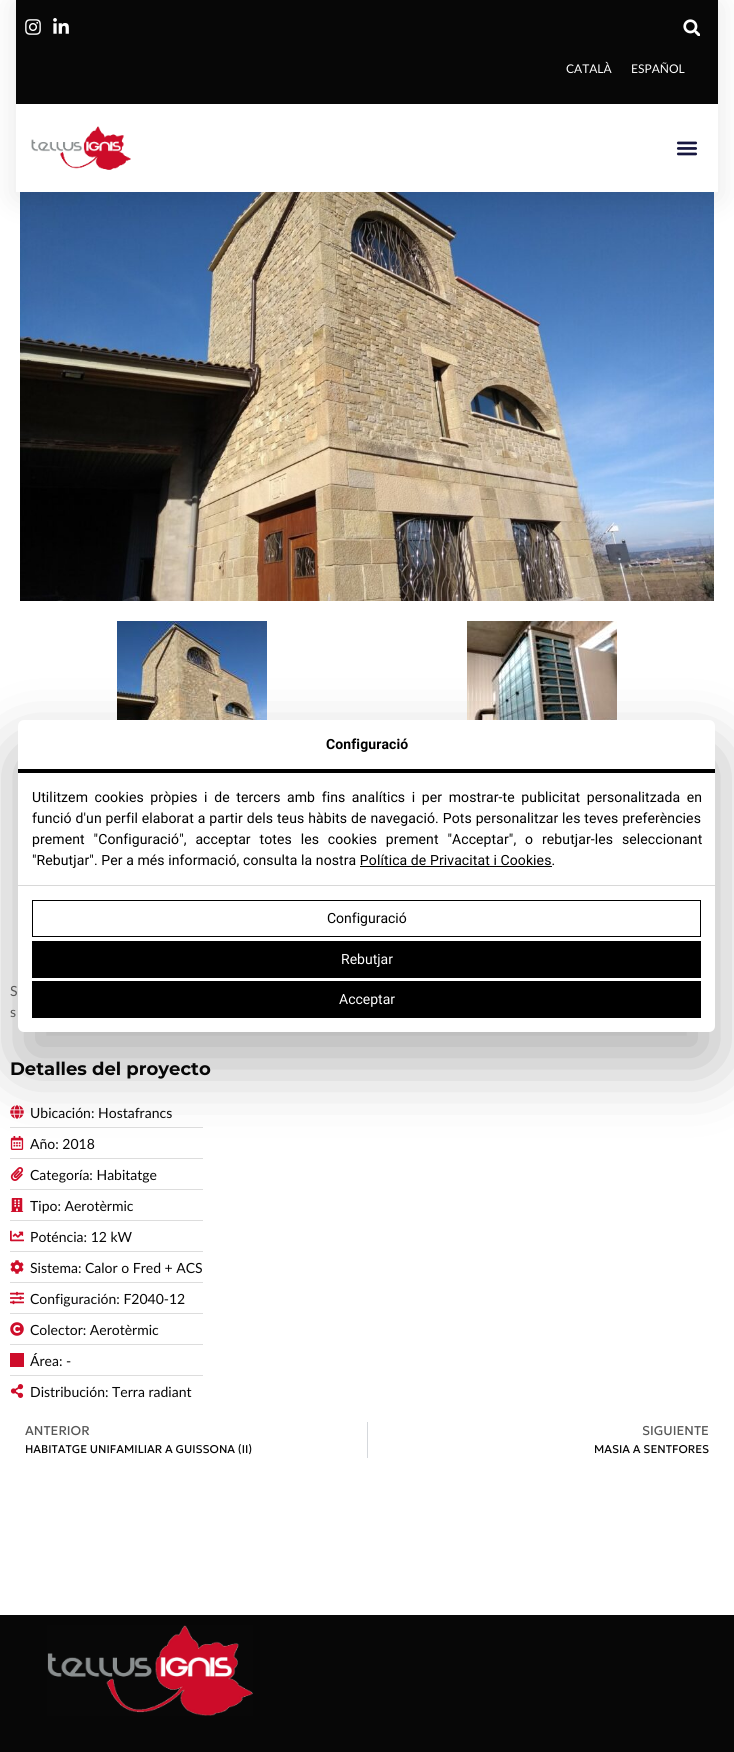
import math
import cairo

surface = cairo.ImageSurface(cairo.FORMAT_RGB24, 734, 1752)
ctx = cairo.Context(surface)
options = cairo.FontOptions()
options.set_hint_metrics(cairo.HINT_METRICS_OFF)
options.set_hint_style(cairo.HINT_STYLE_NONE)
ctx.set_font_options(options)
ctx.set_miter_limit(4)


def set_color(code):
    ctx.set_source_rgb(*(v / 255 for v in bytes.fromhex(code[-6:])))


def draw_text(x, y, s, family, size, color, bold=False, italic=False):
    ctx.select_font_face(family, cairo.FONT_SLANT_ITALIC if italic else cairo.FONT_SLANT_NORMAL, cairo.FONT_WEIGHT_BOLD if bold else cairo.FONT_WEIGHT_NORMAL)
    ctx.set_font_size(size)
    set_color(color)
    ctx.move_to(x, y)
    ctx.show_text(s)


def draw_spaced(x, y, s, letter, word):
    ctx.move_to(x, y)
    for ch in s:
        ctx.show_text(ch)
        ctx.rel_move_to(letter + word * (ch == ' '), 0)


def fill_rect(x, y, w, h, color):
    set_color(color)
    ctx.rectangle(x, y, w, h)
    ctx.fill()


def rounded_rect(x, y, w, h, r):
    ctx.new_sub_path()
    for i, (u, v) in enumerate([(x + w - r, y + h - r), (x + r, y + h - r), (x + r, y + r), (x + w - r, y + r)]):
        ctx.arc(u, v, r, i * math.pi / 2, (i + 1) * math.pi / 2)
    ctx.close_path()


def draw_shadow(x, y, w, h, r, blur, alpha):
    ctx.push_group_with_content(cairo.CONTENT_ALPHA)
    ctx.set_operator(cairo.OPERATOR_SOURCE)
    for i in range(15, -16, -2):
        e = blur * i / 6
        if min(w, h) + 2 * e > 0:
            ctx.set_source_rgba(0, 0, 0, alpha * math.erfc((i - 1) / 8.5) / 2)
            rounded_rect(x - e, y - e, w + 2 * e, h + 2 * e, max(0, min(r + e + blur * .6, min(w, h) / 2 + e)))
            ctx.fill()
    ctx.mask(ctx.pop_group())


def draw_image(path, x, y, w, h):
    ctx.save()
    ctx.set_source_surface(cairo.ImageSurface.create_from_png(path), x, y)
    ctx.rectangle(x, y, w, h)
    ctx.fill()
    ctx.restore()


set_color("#ffffff")
ctx.paint()
draw_image("assets/img6.png", 20, 192, 694, 409)
set_color("#000000")
draw_shadow(16, 5, 702, 192, 0, 15, 0.1)
fill_rect(16, 0, 702, 104, "#070707")
draw_image("assets/img1.png", 25, 19, 16, 16)
draw_image("assets/img2.png", 53, 18, 16, 16)
draw_image("assets/img3.png", 683, 19, 17, 17)
draw_text(566, 73, "CATALÀ", "Lato", 12, "#ffffff")
draw_text(631, 73, "ESPAÑOL", "Lato", 12, "#ffffff")
fill_rect(16, 104, 702, 88, "#ffffff")
draw_image("assets/img4.png", 31, 126, 100, 44)
draw_image("assets/img5.png", 676, 141, 22, 15)
draw_image("assets/img7.png", 117, 621, 150, 99)
draw_image("assets/img8.png", 467, 621, 150, 99)
draw_image("assets/img9.png", 10, 1105, 14, 14)
fill_rect(10, 1127, 193, 1, "#dddddd")
draw_image("assets/img10.png", 10, 1136, 14, 14)
fill_rect(10, 1158, 193, 1, "#dddddd")
set_color("#000000")
draw_shadow(18, 752, 697, 312, 6, 34, 0.3)
set_color("#ffffff")
rounded_rect(18, 720, 697, 312, 6)
ctx.fill()
fill_rect(18, 769, 697, 4, "#000000")
ctx.select_font_face("Roboto", cairo.FONT_SLANT_NORMAL, cairo.FONT_WEIGHT_BOLD)
ctx.set_font_size(14)
draw_spaced(326, 749, "Configuració", 0.1, 0)
fill_rect(18, 885, 697, 1, "#d8d8d8")
ctx.select_font_face("Roboto")
set_color("#000000")
draw_spaced(32, 802, "Utilitzem cookies pròpies i de tercers amb fins analítics i per mostrar-te publicitat personalitzada en", 0.1, 3)
draw_spaced(32, 823, "funció d'un perfil elaborat a partir dels teus hàbits de navegació. Pots personalitzar les teves preferències", 0.1, 0.3)
draw_spaced(32, 844, "prement \"Configuració\", acceptar totes les cookies prement \"Acceptar\", o rebutjar-les seleccionant", 0.1, 5.25)
draw_spaced(32, 865, "\"Rebutjar\". Per a més informació, consulta la nostra Política de Privacitat i Cookies.", 0.1, 0)
fill_rect(360, 866, 192, 1, "#000000")
ctx.rectangle(32.5, 900.5, 668, 36)
ctx.set_line_width(1)
ctx.stroke()
draw_text(327, 923, "Configuració", "Roboto", 14, "#000000")
fill_rect(32, 941, 669, 37, "#000000")
draw_text(341, 964, "Rebutjar", "Roboto", 14, "#ffffff")
fill_rect(32, 981, 669, 37, "#000000")
draw_text(339, 1004, "Acceptar", "Roboto", 14, "#ffffff")
draw_text(10, 996, "S", "Lato", 14, "#575757")
draw_text(10, 1017, "s", "Lato", 14, "#575757")
draw_text(10, 1075, "Detalles del proyecto", "Montserrat", 18, "#070707", bold=True)
draw_text(30, 1118, "Ubicación: Hostafrancs", "Lato", 14, "#070707")
draw_text(30, 1149, "Año: 2018", "Lato", 14, "#070707")
draw_image("assets/img11.png", 10, 1167, 14, 14)
draw_text(30, 1180, "Categoría: Habitatge", "Lato", 14, "#070707")
fill_rect(10, 1189, 193, 1, "#dddddd")
draw_image("assets/img12.png", 10, 1198, 14, 14)
draw_text(30, 1211, "Tipo: Aerotèrmic", "Lato", 14, "#070707")
fill_rect(10, 1220, 193, 1, "#dddddd")
draw_image("assets/img13.png", 10, 1230, 14, 12)
draw_text(30, 1242, "Poténcia: 12 kW", "Lato", 14, "#070707")
fill_rect(10, 1251, 193, 1, "#dddddd")
draw_image("assets/img14.png", 10, 1260, 14, 14)
draw_text(30, 1273, "Sistema: Calor o Fred + ACS", "Lato", 14, "#070707")
fill_rect(10, 1282, 193, 1, "#dddddd")
draw_image("assets/img15.png", 10, 1291, 14, 14)
draw_text(30, 1304, "Configuración: F2040-12", "Lato", 14, "#070707")
fill_rect(10, 1313, 193, 1, "#dddddd")
draw_image("assets/img16.png", 10, 1322, 14, 14)
draw_text(30, 1335, "Colector: Aerotèrmic", "Lato", 14, "#070707")
fill_rect(10, 1344, 193, 1, "#dddddd")
fill_rect(10, 1353, 14, 14, "#ce0d2a")
draw_text(30, 1366, "Área: -", "Lato", 14, "#070707")
fill_rect(10, 1375, 193, 1, "#dddddd")
draw_image("assets/img17.png", 10, 1384, 14, 14)
draw_text(30, 1397, "Distribución: Terra radiant", "Lato", 14, "#070707")
draw_text(25, 1435, "ANTERIOR", "Geologica", 12.75, "#575757")
draw_text(25, 1453, "HABITATGE UNIFAMILIAR A GUISSONA (II)", "Geologica", 11.2, "#070707")
fill_rect(367, 1422, 1, 36, "#d5d8dc")
draw_text(642, 1435, "SIGUIENTE", "Geologica", 12.75, "#575757")
draw_text(594, 1453, "MASIA A SENTFORES", "Geologica", 11.2, "#070707")
fill_rect(0, 1615, 734, 137, "#070707")
draw_image("assets/img18.png", 47, 1625, 206, 91)
surface.write_to_png("output.png")
